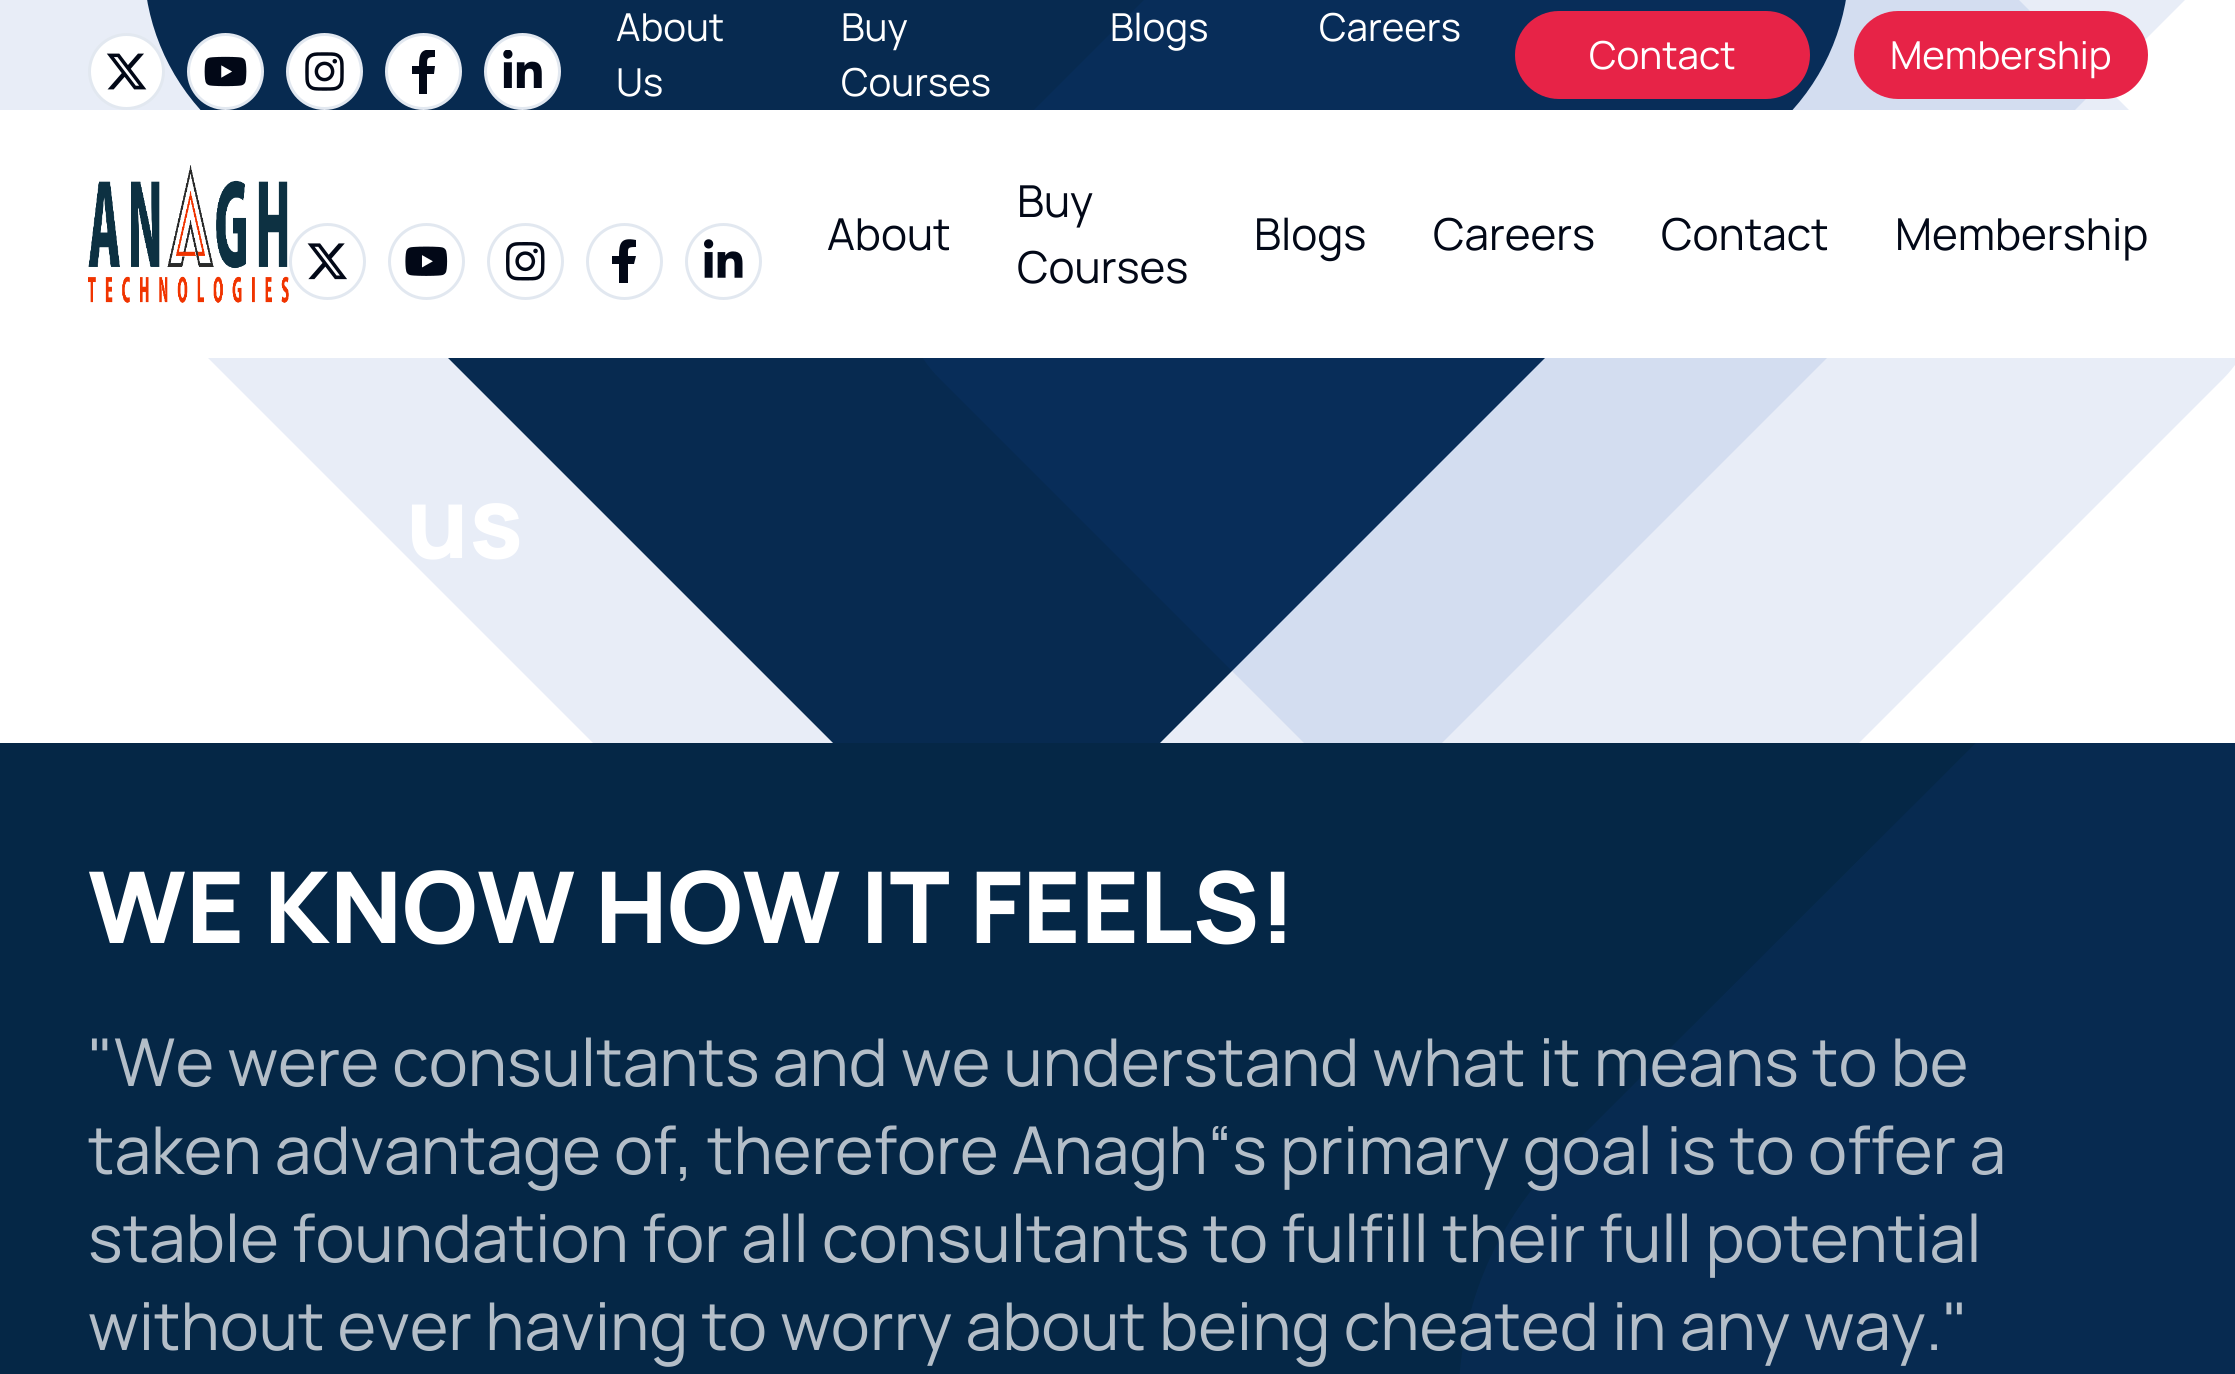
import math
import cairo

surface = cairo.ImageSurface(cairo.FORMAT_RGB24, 2235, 1374)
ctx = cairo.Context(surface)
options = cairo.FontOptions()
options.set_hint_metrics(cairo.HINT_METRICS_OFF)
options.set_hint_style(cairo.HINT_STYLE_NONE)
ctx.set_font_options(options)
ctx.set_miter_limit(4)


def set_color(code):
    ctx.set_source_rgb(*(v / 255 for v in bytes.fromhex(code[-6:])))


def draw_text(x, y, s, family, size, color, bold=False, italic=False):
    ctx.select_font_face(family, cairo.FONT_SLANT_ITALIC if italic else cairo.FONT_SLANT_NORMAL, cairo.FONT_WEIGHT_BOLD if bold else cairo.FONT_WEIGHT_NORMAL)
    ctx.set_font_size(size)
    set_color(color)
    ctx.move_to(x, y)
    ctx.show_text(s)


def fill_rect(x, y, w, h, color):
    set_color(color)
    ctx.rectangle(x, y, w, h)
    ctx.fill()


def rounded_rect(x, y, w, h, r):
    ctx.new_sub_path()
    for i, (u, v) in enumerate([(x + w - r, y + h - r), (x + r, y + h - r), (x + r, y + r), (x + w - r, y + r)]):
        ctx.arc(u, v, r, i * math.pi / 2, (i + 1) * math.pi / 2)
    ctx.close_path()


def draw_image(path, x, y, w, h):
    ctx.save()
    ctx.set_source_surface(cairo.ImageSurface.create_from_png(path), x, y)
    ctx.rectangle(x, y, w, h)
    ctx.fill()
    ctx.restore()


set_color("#ffffff")
ctx.paint()
set_color("#052746")
ctx.new_path()
ctx.move_to(1154, -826)
ctx.line_to(1784, -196)
ctx.curve_to(1871, -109, 1871, 32, 1784, 119)
ctx.line_to(1154, 749)
ctx.curve_to(1067, 836, 926, 836, 839, 749)
ctx.line_to(209, 119)
ctx.curve_to(122, 32, 122, -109, 209, -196)
ctx.line_to(839, -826)
ctx.curve_to(926, -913, 1067, -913, 1154, -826)
ctx.close_path()
ctx.fill()
ctx.set_source_rgba(0.102, 0.278, 0.69, 0.1)
ctx.new_path()
ctx.move_to(1669, -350)
ctx.line_to(2223, 204)
ctx.curve_to(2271, 252, 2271, 331, 2223, 379)
ctx.line_to(1669, 933)
ctx.curve_to(1620, 982, 1542, 982, 1494, 933)
ctx.line_to(940, 379)
ctx.curve_to(891, 331, 891, 252, 940, 204)
ctx.line_to(1494, -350)
ctx.curve_to(1542, -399, 1620, -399, 1669, -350)
ctx.close_path()
ctx.fill()
ctx.new_path()
ctx.move_to(1163, -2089)
ctx.line_to(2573, -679)
ctx.curve_to(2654, -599, 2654, -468, 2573, -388)
ctx.line_to(1163, 1022)
ctx.curve_to(1083, 1103, 952, 1103, 872, 1022)
ctx.line_to(-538, -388)
ctx.curve_to(-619, -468, -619, -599, -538, -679)
ctx.line_to(872, -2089)
ctx.curve_to(952, -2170, 1083, -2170, 1163, -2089)
ctx.close_path()
ctx.fill()
set_color("#ffffff")
ctx.arc(126.5, 71.5, 37, 0, 2 * math.pi)
ctx.fill_preserve()
set_color("#e2e8f0")
ctx.set_line_width(3)
ctx.stroke()
draw_image("assets/img1.png", 106, 53, 41, 37)
set_color("#ffffff")
ctx.arc(225.5, 71.5, 37, 0, 2 * math.pi)
ctx.fill_preserve()
set_color("#e2e8f0")
ctx.stroke()
draw_image("assets/img2.png", 204, 56, 43, 31)
set_color("#ffffff")
ctx.arc(324.5, 71.5, 37, 0, 2 * math.pi)
ctx.fill_preserve()
set_color("#e2e8f0")
ctx.stroke()
draw_image("assets/img3.png", 305, 52, 39, 39)
set_color("#ffffff")
ctx.arc(423.5, 71.5, 37, 0, 2 * math.pi)
ctx.fill_preserve()
set_color("#e2e8f0")
ctx.stroke()
ctx.save()
ctx.rectangle(402, 50, 44, 44)
ctx.clip()
set_color("#020817")
ctx.new_path()
ctx.move_to(434, 74)
ctx.line_to(435, 66)
ctx.line_to(427, 66)
ctx.curve_to(427, 58, 427, 57, 435, 57)
ctx.line_to(435, 50)
ctx.curve_to(421, 48, 419, 53, 419, 66)
ctx.line_to(412, 66)
ctx.line_to(412, 74)
ctx.line_to(419, 74)
ctx.line_to(419, 94)
ctx.line_to(427, 94)
ctx.line_to(427, 74)
ctx.close_path()
ctx.fill()
ctx.restore()
set_color("#ffffff")
ctx.arc(522.5, 71.5, 37, 0, 2 * math.pi)
ctx.fill_preserve()
set_color("#e2e8f0")
ctx.stroke()
draw_image("assets/img4.png", 503, 50, 39, 38)
draw_text(616, 41, "About", "Manrope", 38.5, "#ffffff")
draw_text(616, 96, "Us", "Manrope", 38.5, "#ffffff")
draw_text(841, 41, "Buy", "Manrope", 38.5, "#ffffff")
draw_text(841, 96, "Courses", "Manrope", 38.5, "#ffffff")
draw_text(1110, 41, "Blogs", "Manrope", 38.5, "#ffffff")
draw_text(1319, 41, "Careers", "Manrope", 38.5, "#ffffff")
set_color("#e72347")
rounded_rect(1515, 11, 295, 88, 44)
ctx.fill()
draw_text(1589, 69, "Contact", "Manrope", 38.5, "#ffffff")
set_color("#e72347")
rounded_rect(1854, 11, 294, 88, 44)
ctx.fill()
draw_text(1890, 69, "Membership", "Manrope", 38.5, "#ffffff")
fill_rect(0, 110, 2235, 248, "#ffffff")
draw_image("assets/img5.png", 88, 165, 201, 138)
ctx.arc(327.5, 261.5, 37, 0, 2 * math.pi)
set_color("#e2e8f0")
ctx.stroke()
draw_image("assets/img6.png", 307, 243, 40, 37)
ctx.arc(426.5, 261.5, 37, 0, 2 * math.pi)
ctx.stroke()
draw_image("assets/img7.png", 405, 246, 43, 30)
ctx.arc(525.5, 261.5, 37, 0, 2 * math.pi)
ctx.stroke()
draw_image("assets/img8.png", 506, 242, 39, 39)
ctx.arc(624.5, 261.5, 37, 0, 2 * math.pi)
ctx.stroke()
set_color("#020817")
ctx.new_path()
ctx.move_to(634, 264)
ctx.line_to(636, 256)
ctx.line_to(628, 256)
ctx.curve_to(628, 248, 627, 247, 636, 247)
ctx.line_to(636, 240)
ctx.curve_to(621, 237, 619, 243, 619, 256)
ctx.line_to(612, 256)
ctx.line_to(612, 264)
ctx.line_to(619, 264)
ctx.line_to(619, 283)
ctx.line_to(628, 283)
ctx.line_to(628, 264)
ctx.close_path()
ctx.fill()
ctx.arc(723.5, 261.5, 37, 0, 2 * math.pi)
set_color("#e2e8f0")
ctx.stroke()
draw_image("assets/img9.png", 704, 239, 39, 39)
draw_text(827, 250, "About", "Manrope", 44, "#020817")
draw_text(1017, 217, "Buy", "Manrope", 44, "#020817")
draw_text(1017, 283, "Courses", "Manrope", 44, "#020817")
draw_text(1254, 250, "Blogs", "Manrope", 44, "#020817")
draw_text(1433, 250, "Careers", "Manrope", 44, "#020817")
draw_text(1661, 250, "Contact", "Manrope", 44, "#020817")
draw_text(1895, 250, "Membership", "Manrope", 44, "#020817")
draw_text(406, 558, "us", "Manrope ExtraBold", 99, "#ffffff")
fill_rect(0, 743, 2235, 631, "#052746")
ctx.save()
ctx.rectangle(0, 743, 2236, 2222)
ctx.clip()
ctx.set_source_rgba(0.102, 0.278, 0.69, 0.1)
ctx.new_path()
ctx.move_to(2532, 673)
ctx.line_to(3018, 1159)
ctx.curve_to(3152, 1294, 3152, 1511, 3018, 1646)
ctx.line_to(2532, 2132)
ctx.curve_to(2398, 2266, 2180, 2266, 2046, 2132)
ctx.line_to(1559, 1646)
ctx.curve_to(1425, 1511, 1425, 1294, 1559, 1159)
ctx.line_to(2046, 673)
ctx.curve_to(2180, 539, 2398, 539, 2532, 673)
ctx.close_path()
ctx.fill()
ctx.restore()
draw_text(88, 943, "WE KNOW HOW IT FEELS!", "Manrope ExtraBold", 99, "#ffffff")
draw_text(88, 1086, "\"We were consultants and we understand what it means to be", "Manrope", 66, "#b4bec8")
draw_text(88, 1174, "taken advantage of, therefore Anagh“s primary goal is to offer a", "Manrope", 66, "#b4bec8")
draw_text(88, 1262, "stable foundation for all consultants to fulfill their full potential", "Manrope", 66, "#b4bec8")
draw_text(88, 1350, "without ever having to worry about being cheated in any way.\"", "Manrope", 66, "#b4bec8")
surface.write_to_png("output.png")
